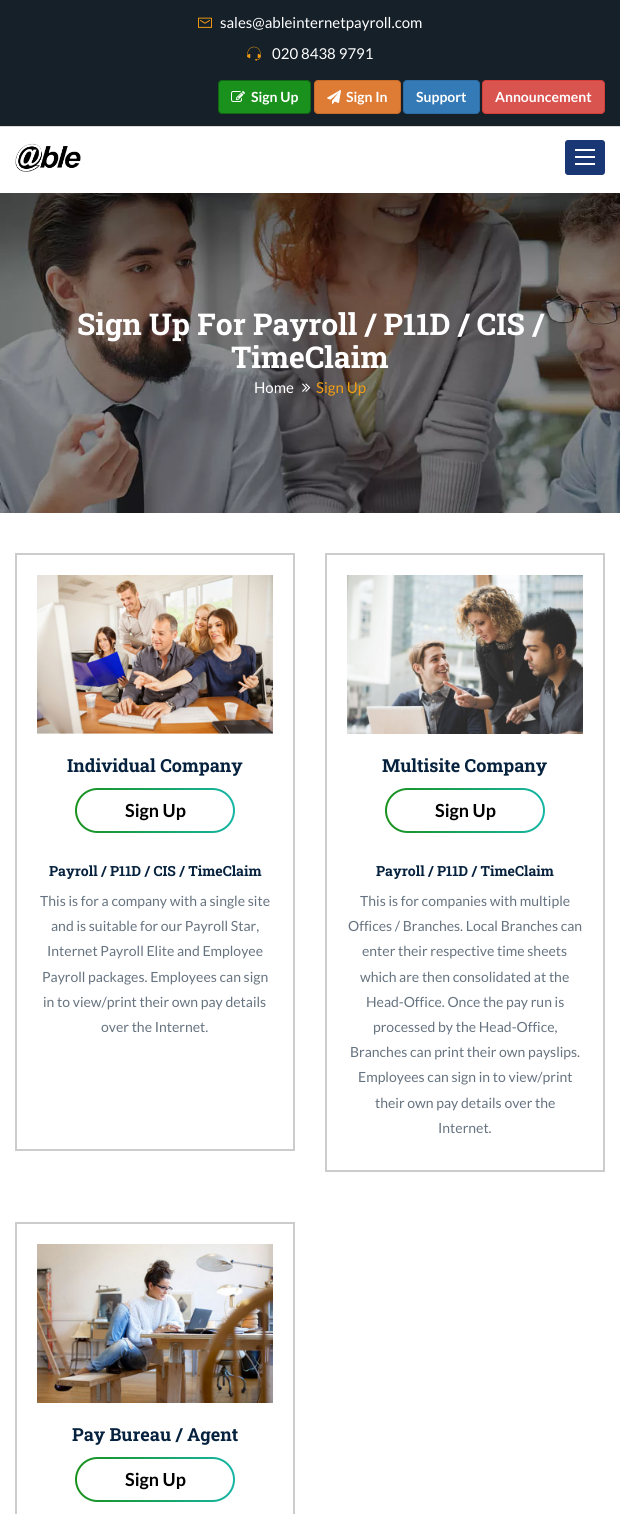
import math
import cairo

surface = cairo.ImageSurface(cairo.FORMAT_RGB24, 620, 1514)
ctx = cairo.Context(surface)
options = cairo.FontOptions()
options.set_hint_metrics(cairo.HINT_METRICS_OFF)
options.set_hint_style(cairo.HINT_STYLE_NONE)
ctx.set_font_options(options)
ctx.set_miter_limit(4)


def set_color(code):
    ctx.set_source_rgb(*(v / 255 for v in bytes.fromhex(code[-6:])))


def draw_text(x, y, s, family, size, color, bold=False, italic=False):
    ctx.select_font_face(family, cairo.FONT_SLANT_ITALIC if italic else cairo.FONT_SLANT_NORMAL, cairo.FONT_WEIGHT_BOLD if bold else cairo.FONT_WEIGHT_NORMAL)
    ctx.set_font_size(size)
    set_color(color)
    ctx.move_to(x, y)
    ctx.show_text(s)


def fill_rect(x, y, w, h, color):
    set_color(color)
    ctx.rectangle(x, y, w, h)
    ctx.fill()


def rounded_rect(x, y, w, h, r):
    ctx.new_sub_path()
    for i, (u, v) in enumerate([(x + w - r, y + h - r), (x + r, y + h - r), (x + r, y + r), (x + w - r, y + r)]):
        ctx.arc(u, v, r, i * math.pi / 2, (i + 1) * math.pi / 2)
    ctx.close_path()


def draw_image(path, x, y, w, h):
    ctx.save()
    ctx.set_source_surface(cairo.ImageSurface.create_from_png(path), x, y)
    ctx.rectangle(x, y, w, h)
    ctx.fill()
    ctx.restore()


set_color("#ffffff")
ctx.paint()
fill_rect(0, 0, 620, 126, "#152029")
draw_image("assets/img1.png", 198, 17, 14, 11)
draw_text(220, 28, "sales@ableinternetpayroll.com", "Lato", 15, "#ffffff")
draw_image("assets/img2.png", 247, 46, 14, 15)
draw_text(272, 59, "020 8438 9791", "Lato", 15, "#ffffff")
set_color("#19911c")
rounded_rect(218.5, 80.5, 92, 33, 3.5)
ctx.fill_preserve()
set_color("#106612")
ctx.set_line_width(1)
ctx.stroke()
draw_image("assets/img3.png", 231, 91, 14, 11)
draw_text(251, 102, "Sign Up", "Lato", 14, "#ffffff", bold=True)
set_color("#de7b35")
rounded_rect(314.5, 80.5, 86, 33, 3.5)
ctx.fill_preserve()
set_color("#c96c2a")
ctx.stroke()
draw_image("assets/img4.png", 327, 90, 14, 14)
draw_text(346, 102, "Sign In", "Lato", 14, "#ffffff", bold=True)
set_color("#337ab7")
rounded_rect(403.5, 80.5, 76, 33, 3.5)
ctx.fill_preserve()
set_color("#2e6da4")
ctx.stroke()
draw_text(416, 102, "Support", "Lato", 14, "#ffffff", bold=True)
set_color("#d9534f")
rounded_rect(482.5, 80.5, 122, 33, 3.5)
ctx.fill_preserve()
set_color("#d43f3a")
ctx.stroke()
draw_text(495, 102, "Announcement", "Lato", 14, "#ffffff", bold=True)
fill_rect(0, 126, 620, 1, "#d9d9d9")
draw_image("assets/img5.png", 15, 143, 66, 29)
set_color("#193775")
rounded_rect(565, 140, 40, 35, 3)
ctx.fill()
fill_rect(575, 149, 20, 2, "#ffffff")
fill_rect(575, 156, 20, 2, "#ffffff")
fill_rect(575, 163, 20, 2, "#ffffff")
draw_image("assets/img6.png", 0, 193, 620, 320)
draw_text(77, 335, "Sign Up For Payroll / P11D / CIS /", "Roboto Slab", 30, "#ffffff", bold=True)
draw_text(231, 368, "TimeClaim", "Roboto Slab", 30, "#ffffff", bold=True)
draw_text(254, 393, "Home", "Lato", 15, "#ffffff")
draw_image("assets/img7.png", 302, 383, 9, 9)
draw_text(316, 393, "Sign Up", "Lato", 15, "#f39c12")
ctx.rectangle(16, 554, 278, 596)
set_color("#cccccc")
ctx.set_line_width(2)
ctx.stroke()
draw_image("assets/img8.png", 37, 575, 236, 159)
draw_text(67, 772, "Individual Company", "Roboto Slab", 18, "#06223e", bold=True)
gradient = cairo.LinearGradient(75, 811, 235, 811)
gradient.add_color_stop_rgba(0, 0.098, 0.569, 0.11, 1)
gradient.add_color_stop_rgba(1, 0.086, 0.71, 0.647, 1)
ctx.set_source(gradient)
rounded_rect(75, 788, 160, 45, 22.5)
ctx.fill()
set_color("#ffffff")
rounded_rect(77, 790, 156, 41, 20.5)
ctx.fill()
draw_text(125, 817, "Sign Up", "Lato", 18, "#000000", bold=True)
draw_text(49, 876, "Payroll / P11D / CIS / TimeClaim", "Roboto Slab", 14, "#06223e", bold=True)
draw_text(40, 906, "This is for a company with a single site", "Lato", 14, "#667380")
draw_text(51, 931, "and is suitable for our Payroll Star,", "Lato", 14, "#667380")
draw_text(47, 956, "Internet Payroll Elite and Employee", "Lato", 14, "#667380")
draw_text(42, 982, "Payroll packages. Employees can sign", "Lato", 14, "#667380")
draw_text(43, 1007, "in to view/print their own pay details", "Lato", 14, "#667380")
draw_text(101, 1032, "over the Internet.", "Lato", 14, "#667380")
ctx.rectangle(326, 554, 278, 617)
set_color("#cccccc")
ctx.stroke()
draw_image("assets/img9.png", 347, 575, 236, 159)
draw_text(382, 772, "Multisite Company", "Roboto Slab", 18, "#06223e", bold=True)
gradient = cairo.LinearGradient(385, 811, 545, 811)
gradient.add_color_stop_rgba(0, 0.098, 0.569, 0.11, 1)
gradient.add_color_stop_rgba(1, 0.086, 0.71, 0.647, 1)
ctx.set_source(gradient)
rounded_rect(385, 788, 160, 45, 22.5)
ctx.fill()
set_color("#ffffff")
rounded_rect(387, 790, 156, 41, 20.5)
ctx.fill()
draw_text(435, 817, "Sign Up", "Lato", 18, "#000000", bold=True)
draw_text(376, 876, "Payroll / P11D / TimeClaim", "Roboto Slab", 14, "#06223e", bold=True)
draw_text(360, 906, "This is for companies with multiple", "Lato", 14, "#667380")
draw_text(348, 931, "Offices / Branches. Local Branches can", "Lato", 14, "#667380")
draw_text(362, 956, "enter their respective time sheets", "Lato", 14, "#667380")
draw_text(360, 982, "which are then consolidated at the", "Lato", 14, "#667380")
draw_text(366, 1007, "Head-Office. Once the pay run is", "Lato", 14, "#667380")
draw_text(373, 1032, "processed by the Head-Office,", "Lato", 14, "#667380")
draw_text(350, 1057, "Branches can print their own payslips.", "Lato", 14, "#667380")
draw_text(358, 1082, "Employees can sign in to view/print", "Lato", 14, "#667380")
draw_text(375, 1108, "their own pay details over the", "Lato", 14, "#667380")
draw_text(438, 1133, "Internet.", "Lato", 14, "#667380")
ctx.rectangle(16, 1223, 278, 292)
set_color("#cccccc")
ctx.stroke()
draw_image("assets/img10.png", 37, 1244, 236, 159)
draw_text(72, 1441, "Pay Bureau / Agent", "Roboto Slab", 18, "#06223e", bold=True)
gradient = cairo.LinearGradient(75, 1480, 235, 1480)
gradient.add_color_stop_rgba(0, 0.098, 0.569, 0.11, 1)
gradient.add_color_stop_rgba(1, 0.086, 0.71, 0.647, 1)
ctx.set_source(gradient)
rounded_rect(75, 1457, 160, 45, 22.5)
ctx.fill()
set_color("#ffffff")
rounded_rect(77, 1459, 156, 41, 20.5)
ctx.fill()
draw_text(125, 1486, "Sign Up", "Lato", 18, "#000000", bold=True)
surface.write_to_png("output.png")
